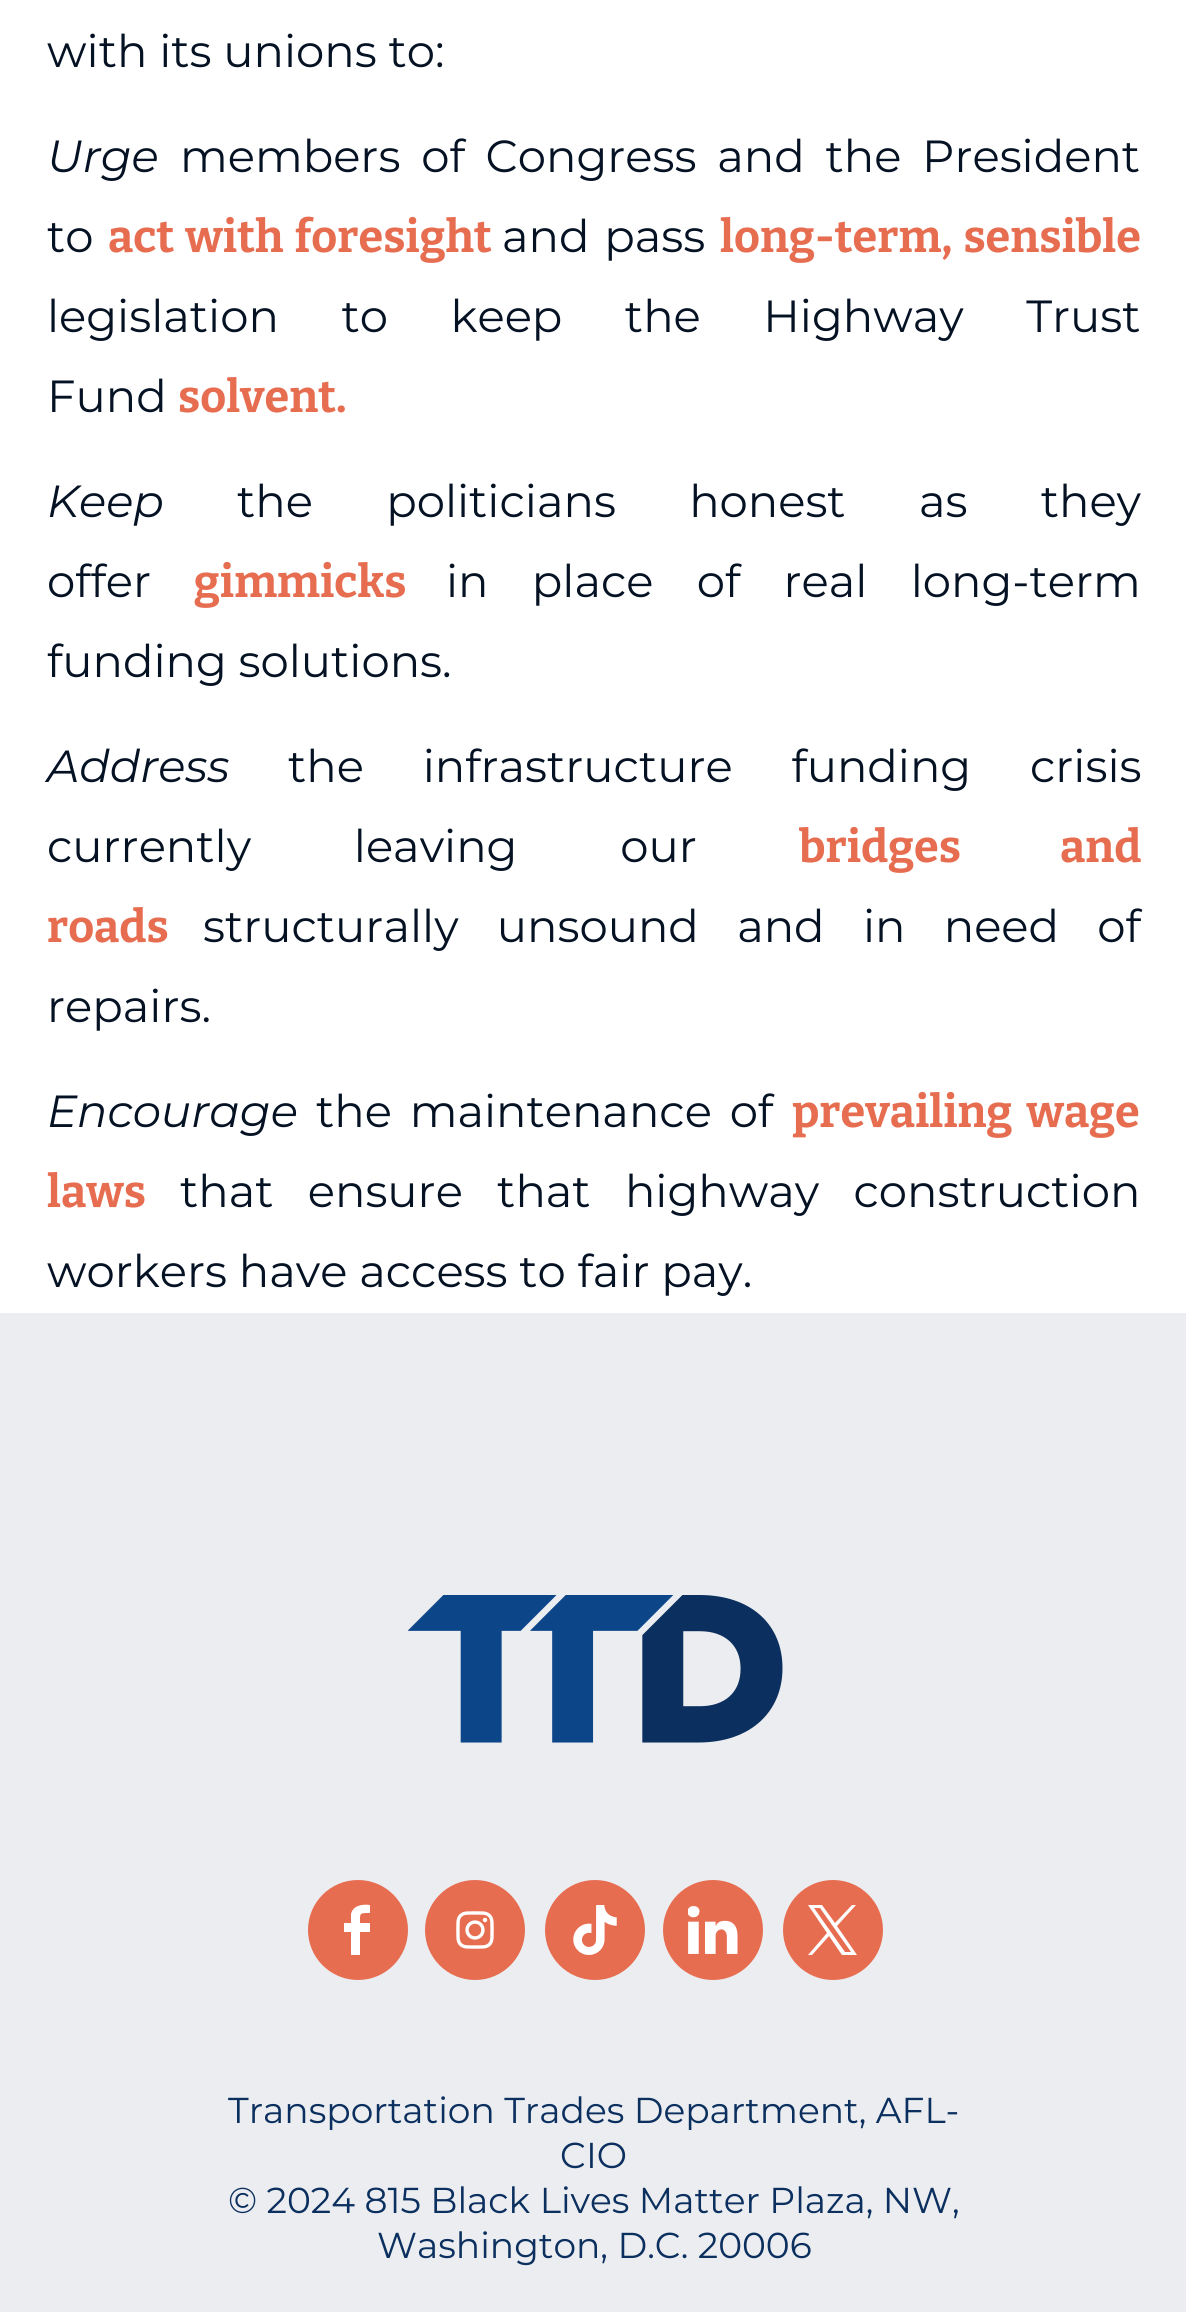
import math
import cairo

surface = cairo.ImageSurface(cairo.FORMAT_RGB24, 1186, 2312)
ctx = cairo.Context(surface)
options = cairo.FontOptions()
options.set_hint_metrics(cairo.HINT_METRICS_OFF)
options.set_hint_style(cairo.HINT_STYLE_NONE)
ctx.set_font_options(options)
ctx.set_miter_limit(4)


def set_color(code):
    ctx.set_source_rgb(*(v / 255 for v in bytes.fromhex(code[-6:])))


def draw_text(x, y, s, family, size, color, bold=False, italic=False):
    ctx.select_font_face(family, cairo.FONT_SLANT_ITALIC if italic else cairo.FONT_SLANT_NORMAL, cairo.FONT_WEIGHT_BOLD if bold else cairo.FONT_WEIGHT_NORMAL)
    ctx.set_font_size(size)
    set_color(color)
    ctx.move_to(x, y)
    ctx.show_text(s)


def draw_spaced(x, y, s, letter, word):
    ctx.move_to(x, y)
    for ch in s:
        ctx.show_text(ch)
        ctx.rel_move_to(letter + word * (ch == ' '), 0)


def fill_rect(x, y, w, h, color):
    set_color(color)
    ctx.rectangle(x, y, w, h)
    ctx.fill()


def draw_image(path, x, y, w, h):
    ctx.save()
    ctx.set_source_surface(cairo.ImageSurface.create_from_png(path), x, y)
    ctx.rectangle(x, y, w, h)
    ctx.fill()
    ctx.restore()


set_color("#ffffff")
ctx.paint()
draw_text(47, 67, "with its unions to:", "Montserrat", 45, "#051224")
draw_text(47, 172, "Urge", "Montserrat", 45, "#051224", italic=True)
ctx.select_font_face("Montserrat")
draw_spaced(180, 172, "members of Congress and the President", 0, 9)
draw_text(47, 252, "to", "Montserrat", 45, "#051224")
ctx.select_font_face("Bitter", cairo.FONT_SLANT_NORMAL, cairo.FONT_WEIGHT_BOLD)
set_color("#e76d51")
draw_spaced(108, 252, "act with foresight", 0, 3)
ctx.select_font_face("Montserrat")
set_color("#051224")
draw_spaced(502, 252, "and pass", 0, 3)
ctx.select_font_face("Bitter", cairo.FONT_SLANT_NORMAL, cairo.FONT_WEIGHT_BOLD)
set_color("#e76d51")
draw_spaced(720, 252, "long-term, sensible", 0, 3)
ctx.select_font_face("Montserrat")
set_color("#051224")
draw_spaced(47, 332, "legislation to keep the Highway Trust", 0, 50.75)
draw_text(47, 412, "Fund", "Montserrat", 45, "#051224")
draw_text(178, 412, "solvent.", "Bitter", 45, "#e76d51", bold=True)
draw_text(47, 517, "Keep", "Montserrat", 45, "#051224", italic=True)
ctx.select_font_face("Montserrat")
draw_spaced(237, 517, "the politicians honest as they", 0, 61.5)
draw_text(47, 597, "offer", "Montserrat", 45, "#051224")
draw_text(194, 597, "gimmicks", "Bitter", 45, "#e76d51", bold=True)
ctx.select_font_face("Montserrat")
set_color("#051224")
draw_spaced(446, 597, "in place of real long-term", 0, 31.5)
draw_text(47, 677, "funding solutions.", "Montserrat", 45, "#051224")
draw_text(47, 782, "Address", "Montserrat", 45, "#051224", italic=True)
ctx.select_font_face("Montserrat")
draw_spaced(288, 782, "the infrastructure funding crisis", 0, 47)
draw_spaced(47, 862, "currently leaving our", 0, 91)
ctx.select_font_face("Bitter", cairo.FONT_SLANT_NORMAL, cairo.FONT_WEIGHT_BOLD)
set_color("#e76d51")
draw_spaced(799, 862, "bridges and", 0, 91)
draw_text(47, 942, "roads", "Bitter", 45, "#e76d51", bold=True)
ctx.select_font_face("Montserrat")
set_color("#051224")
draw_spaced(203, 942, "structurally unsound and in need of", 0, 26.5)
draw_text(47, 1022, "repairs.", "Montserrat", 45, "#051224")
draw_text(47, 1127, "Encourage", "Montserrat", 45, "#051224", italic=True)
ctx.select_font_face("Montserrat")
draw_spaced(316, 1127, "the maintenance of", 0, 6)
ctx.select_font_face("Bitter", cairo.FONT_SLANT_NORMAL, cairo.FONT_WEIGHT_BOLD)
set_color("#e76d51")
draw_spaced(792, 1127, "prevailing wage", 0, 6)
draw_text(47, 1207, "laws", "Bitter", 45, "#e76d51", bold=True)
ctx.select_font_face("Montserrat")
set_color("#051224")
draw_spaced(180, 1207, "that ensure that highway construction", 0, 22.5)
draw_text(47, 1287, "workers have access to fair pay.", "Montserrat", 45, "#051224")
fill_rect(0, 1313, 1186, 999, "#ebedf0")
draw_image("assets/img1.png", 408, 1595, 375, 148)
set_color("#e76d51")
ctx.arc(358, 1930, 50, 0, 2 * math.pi)
ctx.fill()
set_color("#ffffff")
ctx.new_path()
ctx.move_to(351, 1955)
ctx.line_to(351, 1932)
ctx.line_to(344, 1932)
ctx.line_to(344, 1923)
ctx.line_to(351, 1923)
ctx.line_to(351, 1914)
ctx.curve_to(353, 1905, 363, 1904, 370, 1905)
ctx.line_to(370, 1913)
ctx.curve_to(359, 1913, 360, 1913, 360, 1923)
ctx.line_to(370, 1923)
ctx.line_to(370, 1932)
ctx.line_to(360, 1932)
ctx.line_to(360, 1955)
ctx.close_path()
ctx.fill()
set_color("#e76d51")
ctx.arc(475, 1930, 50, 0, 2 * math.pi)
ctx.fill()
draw_image("assets/img2.png", 456, 1911, 38, 38)
ctx.arc(595, 1930, 50, 0, 2 * math.pi)
ctx.fill()
draw_image("assets/img3.png", 573, 1905, 44, 50)
ctx.arc(713, 1930, 50, 0, 2 * math.pi)
ctx.fill()
draw_image("assets/img4.png", 688, 1906, 50, 48)
ctx.arc(833, 1930, 50, 0, 2 * math.pi)
ctx.fill()
set_color("#ffffff")
ctx.new_path()
ctx.move_to(837, 1926)
ctx.line_to(856, 1905)
ctx.line_to(852, 1905)
ctx.line_to(835, 1923)
ctx.line_to(822, 1905)
ctx.line_to(808, 1905)
ctx.line_to(827, 1933)
ctx.line_to(808, 1955)
ctx.line_to(812, 1955)
ctx.line_to(829, 1936)
ctx.line_to(842, 1955)
ctx.line_to(857, 1955)
ctx.close_path()
ctx.move_to(814, 1908)
ctx.line_to(820, 1908)
ctx.line_to(851, 1952)
ctx.line_to(845, 1952)
ctx.close_path()
ctx.fill()
draw_text(228, 2123, "Transportation Trades Department, AFL-", "Montserrat", 36, "#0b2f5e")
draw_text(560, 2168, "CIO", "Montserrat", 36, "#0b2f5e")
draw_text(228, 2213, "© 2024 815 Black Lives Matter Plaza, NW,", "Montserrat", 36, "#0b2f5e")
draw_text(377, 2258, "Washington, D.C. 20006", "Montserrat", 36, "#0b2f5e")
surface.write_to_png("output.png")
